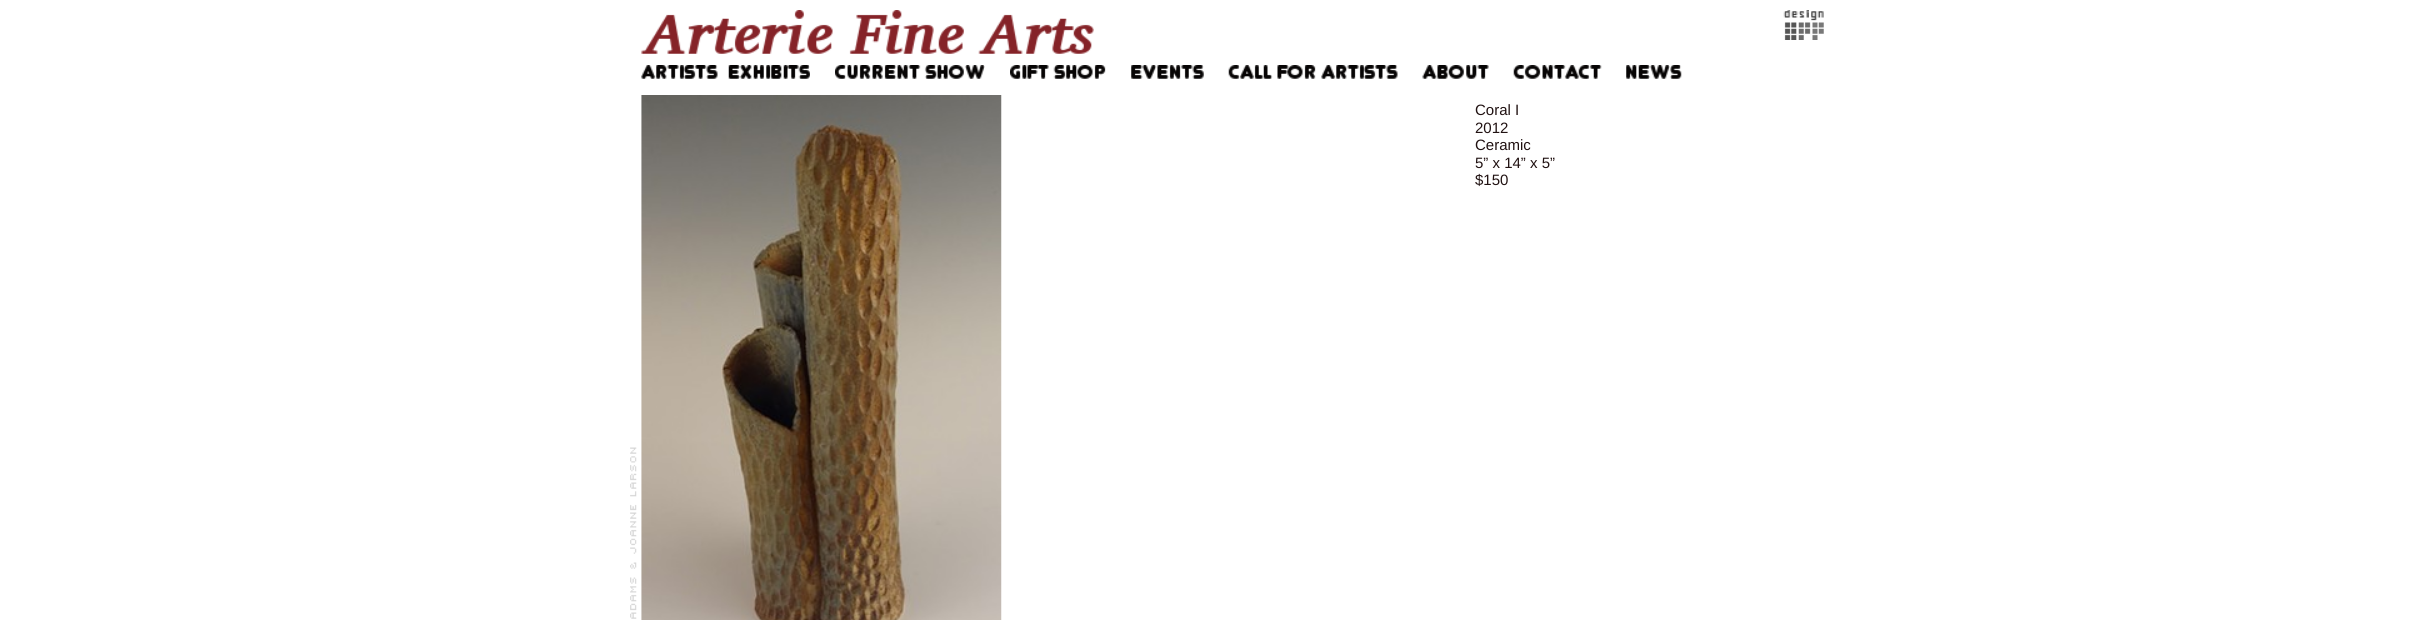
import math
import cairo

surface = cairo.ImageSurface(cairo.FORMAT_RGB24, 2433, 620)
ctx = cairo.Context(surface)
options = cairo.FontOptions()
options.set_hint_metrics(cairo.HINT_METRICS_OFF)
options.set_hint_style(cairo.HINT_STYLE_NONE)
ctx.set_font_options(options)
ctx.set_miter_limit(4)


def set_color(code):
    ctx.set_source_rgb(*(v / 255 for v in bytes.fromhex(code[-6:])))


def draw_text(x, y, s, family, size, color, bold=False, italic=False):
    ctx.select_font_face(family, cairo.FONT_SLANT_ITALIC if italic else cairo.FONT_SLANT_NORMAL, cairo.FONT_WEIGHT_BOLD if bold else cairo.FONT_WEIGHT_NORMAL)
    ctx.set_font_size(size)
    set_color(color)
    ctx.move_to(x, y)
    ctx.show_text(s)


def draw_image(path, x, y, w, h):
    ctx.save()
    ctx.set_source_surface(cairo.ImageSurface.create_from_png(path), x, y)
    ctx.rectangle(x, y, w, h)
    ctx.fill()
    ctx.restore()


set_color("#ffffff")
ctx.paint()
draw_image("assets/img1.png", 641, 10, 453, 44)
draw_image("assets/img2.png", 1783, 10, 41, 30)
draw_image("assets/img3.png", 641, 65, 169, 14)
draw_image("assets/img4.png", 835, 65, 150, 14)
draw_image("assets/img5.png", 1010, 65, 96, 14)
draw_image("assets/img6.png", 1131, 65, 73, 14)
draw_image("assets/img7.png", 1228, 65, 170, 14)
draw_image("assets/img8.png", 1422, 65, 67, 14)
draw_image("assets/img9.png", 1513, 65, 89, 14)
draw_image("assets/img10.png", 1626, 65, 56, 14)
draw_image("assets/img11.png", 641, 95, 361, 525)
draw_text(1475, 115, "Coral I", "Liberation Sans", 15, "#211212")
draw_text(1475, 133, "2012", "Liberation Sans", 15, "#211212")
draw_text(1475, 150, "Ceramic", "Liberation Sans", 15, "#211212")
draw_text(1475, 168, "5” x 14” x 5”", "Liberation Sans", 15, "#211212")
draw_text(1475, 185, "$150", "Liberation Sans", 15, "#211212")
draw_image("assets/img12.png", 630, 447, 7, 172)
surface.write_to_png("output.png")
